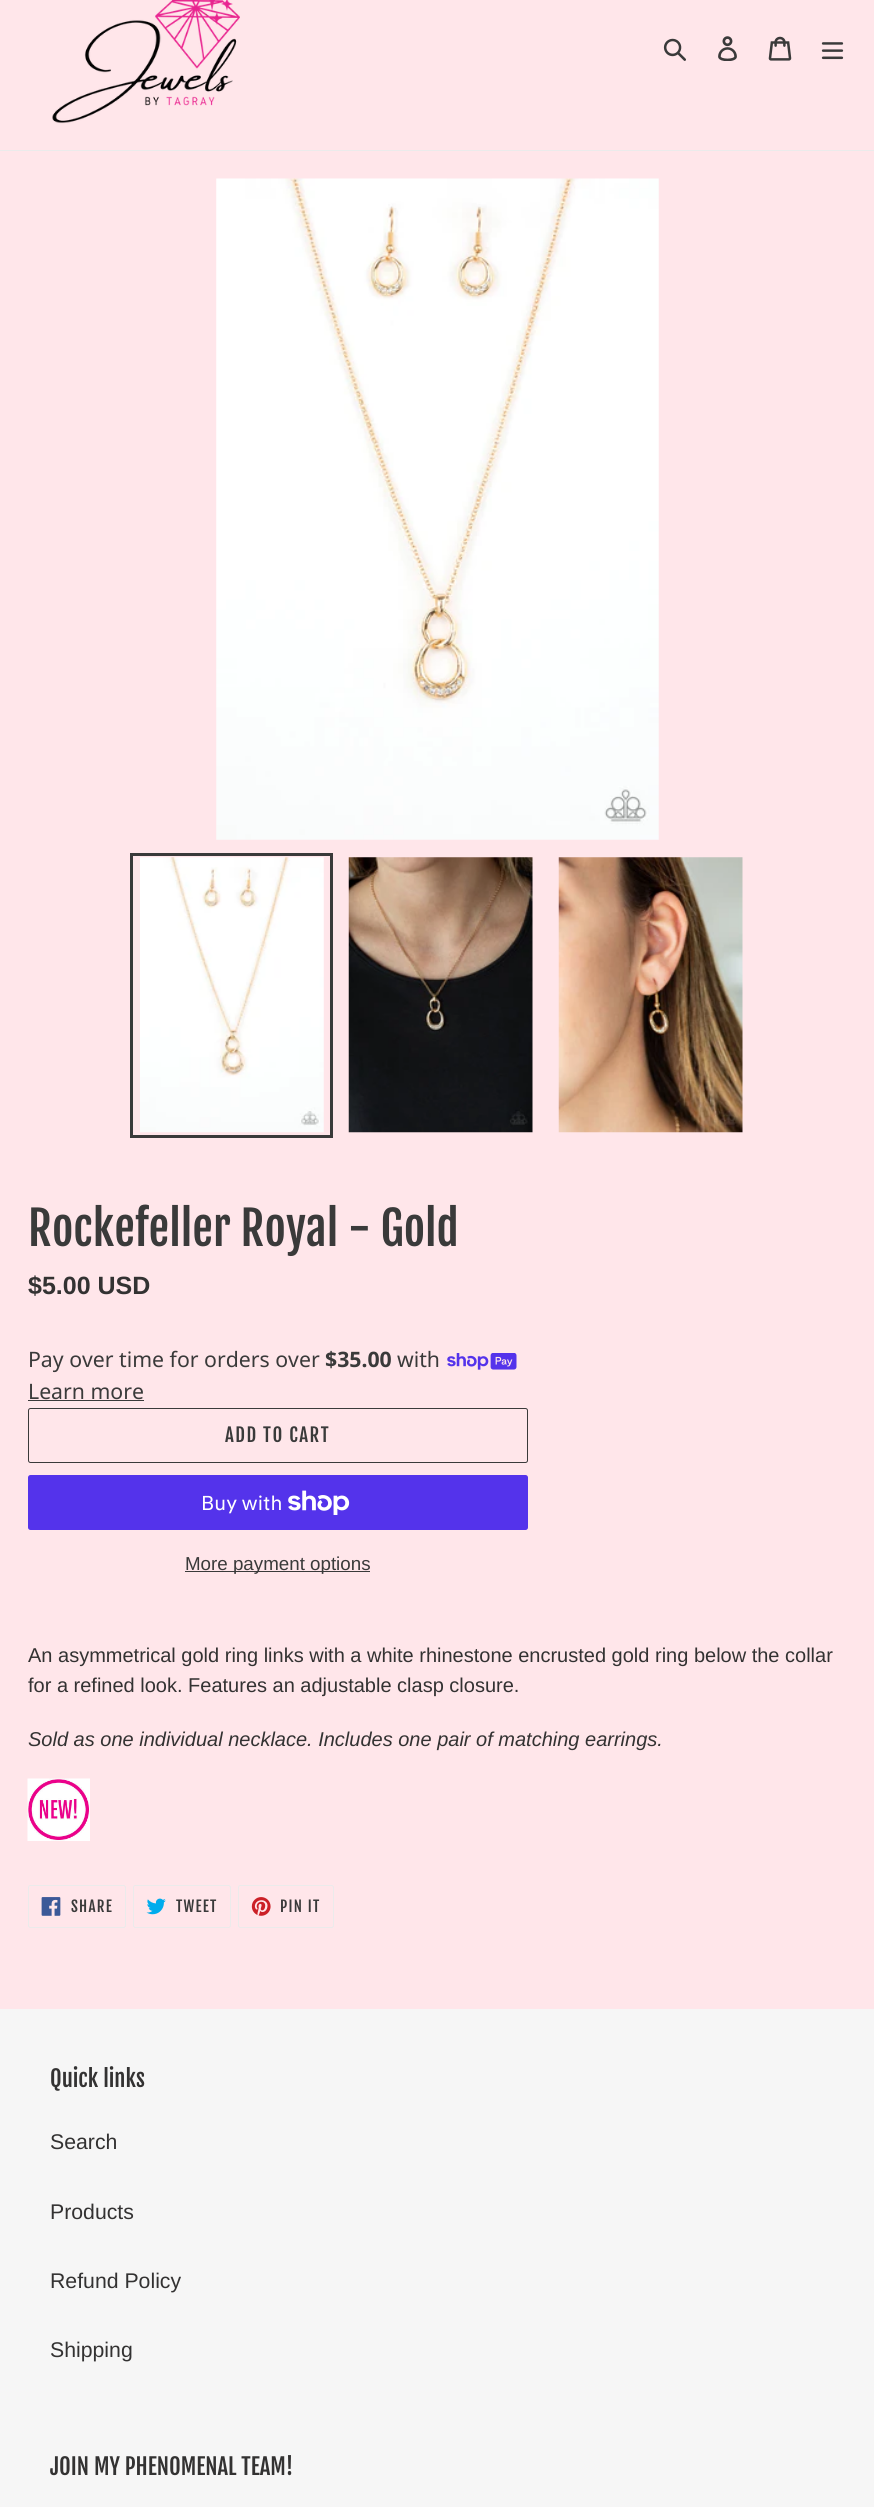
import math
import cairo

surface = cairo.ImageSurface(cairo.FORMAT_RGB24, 874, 2507)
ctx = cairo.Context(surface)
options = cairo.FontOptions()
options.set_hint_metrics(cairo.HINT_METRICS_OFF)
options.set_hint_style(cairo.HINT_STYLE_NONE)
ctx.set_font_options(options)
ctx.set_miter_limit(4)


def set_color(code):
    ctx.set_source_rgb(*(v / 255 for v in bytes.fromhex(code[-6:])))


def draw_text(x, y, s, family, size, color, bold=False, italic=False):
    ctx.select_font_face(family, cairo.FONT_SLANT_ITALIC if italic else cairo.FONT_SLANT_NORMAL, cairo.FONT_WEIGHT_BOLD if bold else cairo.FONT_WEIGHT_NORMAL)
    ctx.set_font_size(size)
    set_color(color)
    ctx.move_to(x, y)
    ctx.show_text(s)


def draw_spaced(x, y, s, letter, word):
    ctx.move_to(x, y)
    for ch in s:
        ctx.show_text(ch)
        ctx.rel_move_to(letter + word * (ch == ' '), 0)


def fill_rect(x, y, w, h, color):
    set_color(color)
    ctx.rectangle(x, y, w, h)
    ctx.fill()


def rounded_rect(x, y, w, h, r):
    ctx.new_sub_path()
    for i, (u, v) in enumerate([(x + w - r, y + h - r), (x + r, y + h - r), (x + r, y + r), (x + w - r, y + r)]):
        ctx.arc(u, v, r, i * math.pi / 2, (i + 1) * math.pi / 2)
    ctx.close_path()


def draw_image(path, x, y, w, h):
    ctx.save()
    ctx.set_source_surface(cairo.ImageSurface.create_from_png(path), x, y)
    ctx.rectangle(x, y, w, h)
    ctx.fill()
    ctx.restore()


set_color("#ffe6ea")
ctx.paint()
fill_rect(0, 150, 874, 1, "#ebebeb")
draw_image("assets/img1.png", 52, 0, 188, 124)
draw_image("assets/img2.png", 663, 38, 23, 23)
draw_image("assets/img3.png", 718, 36, 19, 25)
draw_image("assets/img4.png", 768, 36, 24, 25)
draw_image("assets/img5.png", 821, 42, 23, 18)
draw_image("assets/img6.png", 216, 178, 443, 662)
ctx.rectangle(131.5, 854.5, 200, 282)
set_color("#3a3a3a")
ctx.set_line_width(3)
ctx.stroke()
draw_image("assets/img7.png", 140, 857, 184, 276)
draw_image("assets/img8.png", 348, 857, 185, 276)
draw_image("assets/img9.png", 558, 857, 185, 276)
draw_text(28, 1246, "Rockefeller Royal - Gold", "Fjalla One", 46.25, "#3a3a3a")
draw_text(28, 1294, "$5.00 USD", "Liberation Sans", 25, "#333232", bold=True)
draw_text(28, 1367, "Pay over time for orders over", "Noto Sans", 21.25, "#3a3a3a")
draw_text(325, 1367, "$35.00", "Noto Sans", 21.25, "#3a3a3a", bold=True)
draw_text(397, 1367, "with", "Noto Sans", 21.25, "#3a3a3a")
draw_image("assets/img10.png", 447, 1353, 70, 17)
draw_text(28, 1399, "Learn more", "Noto Sans", 21.25, "#3a3a3a")
fill_rect(28, 1400, 116, 1, "#3a3a3a")
rounded_rect(28.5, 1408.5, 499, 54, 2)
ctx.set_line_width(1)
ctx.stroke()
ctx.select_font_face("Fjalla One")
ctx.set_font_size(18.75)
draw_spaced(225, 1442, "ADD TO CART", 1.5, 0)
set_color("#5433eb")
rounded_rect(28, 1475, 500, 55, 2.5)
ctx.fill()
draw_text(201, 1510, "Buy with", "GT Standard", 20, "#ffffff")
draw_image("assets/img11.png", 288, 1490, 62, 25)
fill_rect(185, 1571, 185, 1, "#3a3a3a")
draw_text(185, 1570, "More payment options", "Liberation Sans", 18.75, "#3a3a3a")
draw_text(28, 1662, "An asymmetrical gold ring links with a white rhinestone encrusted gold ring below the collar", "Liberation Sans", 20, "#333232")
draw_text(28, 1692, "for a refined look. Features an adjustable clasp closure.", "Liberation Sans", 20, "#333232")
draw_text(28, 1746, "Sold as one individual necklace. Includes one pair of matching earrings.", "Liberation Sans", 20, "#333232", italic=True)
draw_image("assets/img12.png", 27, 1778, 63, 63)
rounded_rect(28.5, 1885.5, 97, 42, 2)
set_color("#ebebeb")
ctx.stroke()
draw_image("assets/img13.png", 41, 1897, 20, 19)
ctx.select_font_face("Fjalla One")
ctx.set_font_size(15)
set_color("#3a3a3a")
draw_spaced(71, 1912, "SHARE", 1.25, 0)
rounded_rect(133.5, 1885.5, 97, 42, 2)
set_color("#ebebeb")
ctx.stroke()
draw_image("assets/img14.png", 146, 1898, 20, 17)
set_color("#3a3a3a")
draw_spaced(176, 1912, "TWEET", 1.25, 0)
rounded_rect(238.5, 1885.5, 95, 42, 2)
set_color("#ebebeb")
ctx.stroke()
draw_image("assets/img15.png", 251, 1897, 20, 19)
set_color("#3a3a3a")
draw_spaced(280, 1912, "PIN IT", 1.25, 0)
fill_rect(0, 2009, 874, 498, "#f6f6f6")
draw_text(50, 2087, "Quick links", "Fjalla One", 22.5, "#333232")
draw_text(50, 2149, "Search", "Liberation Sans", 21.25, "#333232")
draw_text(50, 2219, "Products", "Liberation Sans", 21.25, "#333232")
draw_text(50, 2288, "Refund Policy", "Liberation Sans", 21.25, "#333232")
draw_text(50, 2357, "Shipping", "Liberation Sans", 21.25, "#333232")
draw_text(50, 2475, "JOIN MY PHENOMENAL TEAM!", "Fjalla One", 22.5, "#333232")
surface.write_to_png("output.png")
